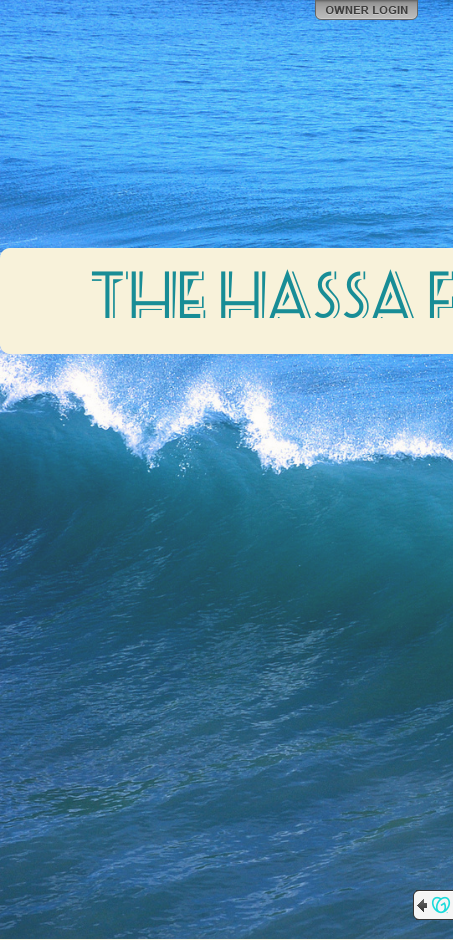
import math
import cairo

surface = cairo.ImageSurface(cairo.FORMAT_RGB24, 453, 940)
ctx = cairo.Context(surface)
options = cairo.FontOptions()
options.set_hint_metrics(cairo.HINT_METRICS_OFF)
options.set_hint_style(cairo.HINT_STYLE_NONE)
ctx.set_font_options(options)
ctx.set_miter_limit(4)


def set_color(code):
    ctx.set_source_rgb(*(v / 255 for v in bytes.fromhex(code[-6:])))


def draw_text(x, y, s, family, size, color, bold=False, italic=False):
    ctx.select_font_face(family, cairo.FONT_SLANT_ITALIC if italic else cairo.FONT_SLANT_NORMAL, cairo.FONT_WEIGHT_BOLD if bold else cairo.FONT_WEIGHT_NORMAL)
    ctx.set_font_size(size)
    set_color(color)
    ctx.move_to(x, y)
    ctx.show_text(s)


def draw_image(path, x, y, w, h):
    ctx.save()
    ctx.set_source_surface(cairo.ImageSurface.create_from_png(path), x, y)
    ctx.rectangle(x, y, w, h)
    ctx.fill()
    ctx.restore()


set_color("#f8f2da")
ctx.paint()
draw_image("assets/img1.png", 0, 0, 453, 939)
draw_image("assets/img2.png", 315, 0, 103, 20)
set_color("#f8f2da")
ctx.new_path()
ctx.move_to(10, 248)
ctx.line_to(453, 248)
ctx.line_to(453, 354)
ctx.line_to(10, 354)
ctx.curve_to(4.5, 354, 0, 349.5, 0, 344)
ctx.line_to(0, 258)
ctx.curve_to(0, 252.5, 4.5, 248, 10, 248)
ctx.close_path()
ctx.fill()
draw_text(90, 318, "The Hassa F", "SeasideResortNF", 54, "#188d96")
draw_image("assets/img3.png", 416, 890, 37, 30)
draw_image("assets/img4.png", 413, 891, 14, 28)
draw_image("assets/img5.png", 431, 896, 20, 18)
surface.write_to_png("output.png")
